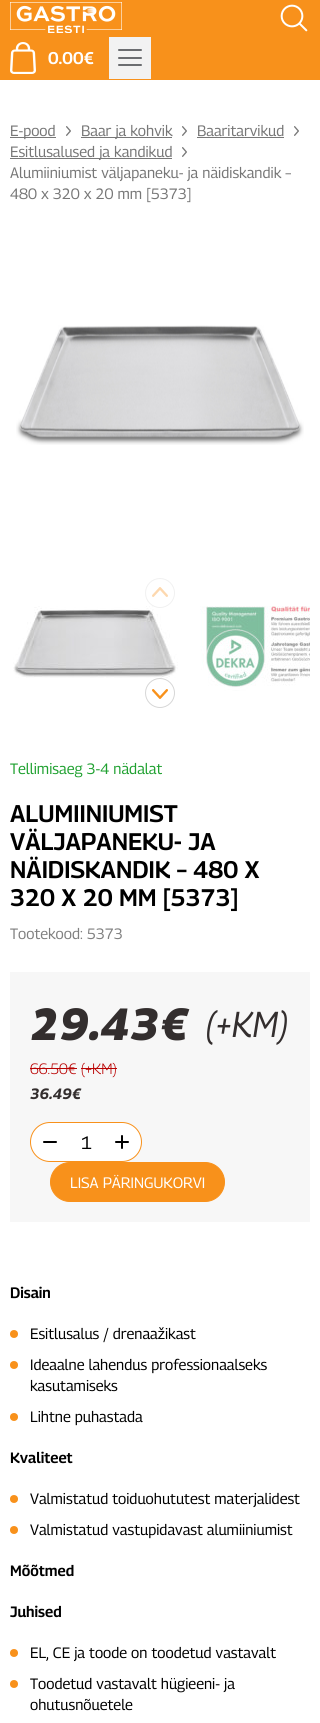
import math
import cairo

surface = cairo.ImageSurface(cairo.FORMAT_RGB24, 320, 1723)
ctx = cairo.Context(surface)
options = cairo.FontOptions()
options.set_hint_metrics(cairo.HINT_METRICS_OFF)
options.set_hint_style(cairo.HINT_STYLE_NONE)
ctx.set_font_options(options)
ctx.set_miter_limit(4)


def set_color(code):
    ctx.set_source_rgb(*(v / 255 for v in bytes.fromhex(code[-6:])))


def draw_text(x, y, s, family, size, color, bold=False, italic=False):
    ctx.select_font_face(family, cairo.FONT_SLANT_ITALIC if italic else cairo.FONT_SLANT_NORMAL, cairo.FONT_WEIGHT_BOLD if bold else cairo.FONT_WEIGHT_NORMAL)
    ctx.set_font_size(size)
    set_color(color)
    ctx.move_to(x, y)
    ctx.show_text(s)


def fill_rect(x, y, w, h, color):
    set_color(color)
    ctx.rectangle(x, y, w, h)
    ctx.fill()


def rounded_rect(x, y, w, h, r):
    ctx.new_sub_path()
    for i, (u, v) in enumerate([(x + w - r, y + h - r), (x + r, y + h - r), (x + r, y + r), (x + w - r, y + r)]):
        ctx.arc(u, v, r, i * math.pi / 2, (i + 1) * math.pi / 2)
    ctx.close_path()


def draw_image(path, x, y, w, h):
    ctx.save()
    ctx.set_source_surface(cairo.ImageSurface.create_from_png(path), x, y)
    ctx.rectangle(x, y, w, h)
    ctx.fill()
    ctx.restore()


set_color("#ffffff")
ctx.paint()
fill_rect(0, 0, 320, 80, "#f8911b")
draw_image("assets/img1.png", 10, 2, 112, 31)
draw_image("assets/img2.png", 280, 4, 28, 28)
draw_image("assets/img3.png", 10, 42, 26, 32)
draw_text(48, 64, "0.00€", "Georama SemiBold", 17, "#ffffff")
fill_rect(109, 37, 42, 42, "#f2f2f2")
set_color("#6b6d70")
rounded_rect(118, 49, 24, 2, 1)
ctx.fill()
rounded_rect(118, 57, 24, 2, 1)
ctx.fill()
rounded_rect(118, 64, 24, 2, 1)
ctx.fill()
fill_rect(10, 137, 46, 1, "#777777")
draw_text(10, 136, "E-pood", "Georama", 15, "#777777")
draw_image("assets/img4.png", 66, 126, 5, 10)
fill_rect(81, 137, 91, 1, "#777777")
draw_text(81, 136, "Baar ja kohvik", "Georama", 15, "#777777")
draw_image("assets/img4.png", 182, 126, 5, 10)
draw_text(197, 136, "Baaritarvikud", "Georama", 15, "#777777")
fill_rect(197, 137, 87, 1, "#777777")
draw_image("assets/img4.png", 294, 126, 5, 10)
fill_rect(10, 158, 162, 1, "#777777")
draw_text(10, 157, "Esitlusalused ja kandikud", "Georama", 15, "#777777")
draw_image("assets/img4.png", 182, 147, 5, 10)
draw_text(10, 178, "Alumiiniumist väljapaneku- ja näidiskandik –", "Georama", 15, "#777777")
draw_text(10, 199, "480 x 320 x 20 mm [5373]", "Georama", 15, "#777777")
draw_image("assets/img5.png", 16, 325, 288, 120)
draw_image("assets/img7.png", 13, 606, 165, 72)
draw_image("assets/img6.png", 145, 578, 30, 30)
draw_image("assets/img8.png", 200, 606, 110, 85)
draw_image("assets/img9.png", 145, 678, 30, 30)
draw_text(10, 774, "Tellimisaeg 3-4 nädalat", "Georama", 15, "#20a131")
draw_text(10, 822, "ALUMIINIUMIST", "Georama SemiBold", 24, "#000000")
draw_text(10, 850, "VÄLJAPANEKU- JA", "Georama SemiBold", 24, "#000000")
draw_text(10, 878, "NÄIDISKANDIK – 480 X", "Georama SemiBold", 24, "#000000")
draw_text(10, 906, "320 X 20 MM [5373]", "Georama SemiBold", 24, "#000000")
draw_text(10, 939, "Tootekood: 5373", "Georama", 15, "#808080")
fill_rect(10, 972, 300, 250, "#f7f7f7")
draw_text(30, 1040, "29.43€", "Georama ExtraBold", 45, "#332e2e", italic=True)
draw_text(205, 1037, "(+KM)", "Georama", 36, "#332e2e", italic=True)
draw_text(30, 1074, "66.50€ (+KM)", "Georama Light", 15, "#b90202")
fill_rect(30, 1068, 47, 1, "#b90202")
fill_rect(81, 1068, 36, 1, "#b90202")
draw_text(30, 1099, "36.49€", "Georama", 15, "#332e2e", bold=True, italic=True)
set_color("#ffffff")
rounded_rect(30.5, 1122.5, 111, 39, 19.5)
ctx.fill_preserve()
set_color("#f8911b")
ctx.set_line_width(1)
ctx.stroke()
set_color("#000000")
rounded_rect(43, 1141, 14, 2, 1)
ctx.fill()
draw_text(81, 1149, "1", "Georama", 18, "#000000")
rounded_rect(115, 1141, 14, 2, 1)
ctx.fill()
rounded_rect(121, 1135, 2, 14, 1)
ctx.fill()
set_color("#f8911b")
rounded_rect(50.5, 1162.5, 174, 39, 19.5)
ctx.fill_preserve()
ctx.stroke()
draw_text(70, 1188, "LISA PÄRINGUKORVI", "Georama", 15, "#ffffff")
draw_text(10, 1298, "Disain", "Georama SemiBold", 15, "#000000")
set_color("#f8911b")
ctx.new_path()
ctx.arc(14, 1334, 4, 0, 2 * math.pi)
ctx.fill()
draw_text(30, 1339, "Esitlusalus / drenaažikast", "Georama", 15, "#000000")
set_color("#f8911b")
ctx.new_path()
ctx.arc(14, 1365, 4, 0, 2 * math.pi)
ctx.fill()
draw_text(30, 1370, "Ideaalne lahendus professionaalseks", "Georama", 15, "#000000")
draw_text(30, 1391, "kasutamiseks", "Georama", 15, "#000000")
set_color("#f8911b")
ctx.new_path()
ctx.arc(14, 1417, 4, 0, 2 * math.pi)
ctx.fill()
draw_text(30, 1422, "Lihtne puhastada", "Georama", 15, "#000000")
draw_text(10, 1463, "Kvaliteet", "Georama SemiBold", 15, "#000000")
set_color("#f8911b")
ctx.new_path()
ctx.arc(14, 1499, 4, 0, 2 * math.pi)
ctx.fill()
draw_text(30, 1504, "Valmistatud toiduohututest materjalidest", "Georama", 15, "#000000")
set_color("#f8911b")
ctx.new_path()
ctx.arc(14, 1530, 4, 0, 2 * math.pi)
ctx.fill()
draw_text(30, 1535, "Valmistatud vastupidavast alumiiniumist", "Georama", 15, "#000000")
draw_text(10, 1576, "Mõõtmed", "Georama SemiBold", 15, "#000000")
draw_text(10, 1617, "Juhised", "Georama SemiBold", 15, "#000000")
set_color("#f8911b")
ctx.new_path()
ctx.arc(14, 1653, 4, 0, 2 * math.pi)
ctx.fill()
draw_text(30, 1658, "EL, CE ja toode on toodetud vastavalt", "Georama", 15, "#000000")
set_color("#f8911b")
ctx.new_path()
ctx.arc(14, 1684, 4, 0, 2 * math.pi)
ctx.fill()
draw_text(30, 1689, "Toodetud vastavalt hügieeni- ja", "Georama", 15, "#000000")
draw_text(30, 1710, "ohutusnõuetele", "Georama", 15, "#000000")
surface.write_to_png("output.png")
